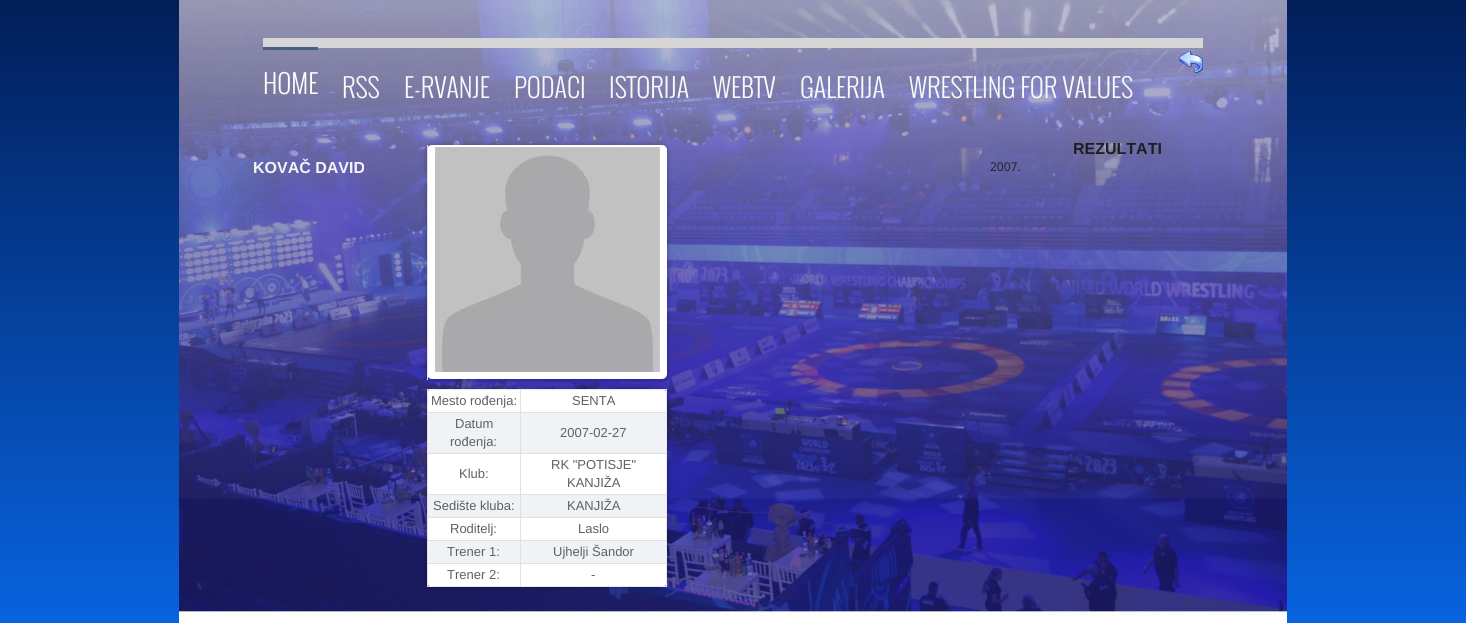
import math
import cairo

surface = cairo.ImageSurface(cairo.FORMAT_RGB24, 1466, 623)
ctx = cairo.Context(surface)
options = cairo.FontOptions()
options.set_hint_metrics(cairo.HINT_METRICS_OFF)
options.set_hint_style(cairo.HINT_STYLE_NONE)
ctx.set_font_options(options)
ctx.set_miter_limit(4)


def set_color(code):
    ctx.set_source_rgb(*(v / 255 for v in bytes.fromhex(code[-6:])))


def draw_text(x, y, s, family, size, color, bold=False, italic=False):
    ctx.select_font_face(family, cairo.FONT_SLANT_ITALIC if italic else cairo.FONT_SLANT_NORMAL, cairo.FONT_WEIGHT_BOLD if bold else cairo.FONT_WEIGHT_NORMAL)
    ctx.set_font_size(size)
    set_color(color)
    ctx.move_to(x, y)
    ctx.show_text(s)


def fill_rect(x, y, w, h, color):
    set_color(color)
    ctx.rectangle(x, y, w, h)
    ctx.fill()


def rounded_rect(x, y, w, h, r):
    ctx.new_sub_path()
    for i, (u, v) in enumerate([(x + w - r, y + h - r), (x + r, y + h - r), (x + r, y + r), (x + w - r, y + r)]):
        ctx.arc(u, v, r, i * math.pi / 2, (i + 1) * math.pi / 2)
    ctx.close_path()


def draw_shadow(x, y, w, h, r, blur, alpha):
    ctx.push_group_with_content(cairo.CONTENT_ALPHA)
    ctx.set_operator(cairo.OPERATOR_SOURCE)
    for i in range(15, -16, -2):
        e = blur * i / 6
        if min(w, h) + 2 * e > 0:
            ctx.set_source_rgba(0, 0, 0, alpha * math.erfc((i - 1) / 8.5) / 2)
            rounded_rect(x - e, y - e, w + 2 * e, h + 2 * e, max(0, min(r + e + blur * .6, min(w, h) / 2 + e)))
            ctx.fill()
    ctx.mask(ctx.pop_group())


def draw_image(path, x, y, w, h):
    ctx.save()
    ctx.set_source_surface(cairo.ImageSurface.create_from_png(path), x, y)
    ctx.rectangle(x, y, w, h)
    ctx.fill()
    ctx.restore()


set_color("#ffffff")
ctx.paint()
draw_image("assets/img1.png", 0, 0, 1466, 623)
fill_rect(263, 38, 940, 10, "#d6d6d6")
draw_image("assets/img2.png", 1179, 51, 24, 22)
fill_rect(263, 47, 55, 3, "#495d7e")
draw_text(263, 94, "HOME", "Oswald Light", 26, "#fffcfc")
draw_text(342, 98, "RSS", "Oswald Light", 26, "#f9f9f9")
draw_text(404, 98, "E-RVANJE", "Oswald Light", 26, "#f9f9f9")
draw_text(514, 98, "PODACI", "Oswald Light", 26, "#f9f9f9")
draw_text(609, 98, "ISTORIJA", "Oswald Light", 26, "#f9f9f9")
draw_text(713, 98, "WEBTV", "Oswald Light", 26, "#f9f9f9")
draw_text(800, 98, "GALERIJA", "Oswald Light", 26, "#f9f9f9")
draw_text(909, 98, "WRESTLING FOR VALUES", "Oswald Light", 26, "#f9f9f9")
draw_text(1073, 154, "REZULTATI", "Liberation Sans", 16, "#1f1e1e", bold=True)
draw_text(253, 173, "KOVAČ DAVID", "Liberation Sans", 16, "#f5f4f2", bold=True)
draw_text(990, 171, "2007.", "Open Sans", 12, "#1f1e1e")
set_color("#000000")
draw_shadow(427, 145, 240, 234, 5, 2.5, 0.3)
set_color("#ffffff")
rounded_rect(427, 145, 240, 234, 5)
ctx.fill()
fill_rect(427, 145, 1, 235, "#e0e0e0")
draw_image("assets/img3.png", 435, 147, 225, 225)
set_color("#000000")
draw_shadow(427, 389, 240, 198, 5, 2.5, 0.3)
set_color("#ffffff")
rounded_rect(427, 389, 240, 198, 5)
ctx.fill()
fill_rect(427, 389, 240, 1, "#e9eaec")
fill_rect(666, 389, 1, 198, "#e9eaec")
fill_rect(427, 586, 240, 1, "#e9eaec")
fill_rect(428, 413, 238, 40, "#f0f3f5")
fill_rect(428, 495, 238, 22, "#f0f3f5")
fill_rect(428, 541, 238, 22, "#f0f3f5")
fill_rect(520, 563, 1, 24, "#e0e0e0")
fill_rect(520, 563, 147, 1, "#e0e0e0")
fill_rect(520, 540, 1, 24, "#e0e0e0")
fill_rect(520, 540, 147, 1, "#e0e0e0")
fill_rect(520, 517, 1, 24, "#e0e0e0")
fill_rect(520, 517, 147, 1, "#e0e0e0")
fill_rect(520, 494, 1, 24, "#e0e0e0")
fill_rect(520, 494, 147, 1, "#e0e0e0")
fill_rect(520, 453, 1, 42, "#e0e0e0")
fill_rect(520, 453, 147, 1, "#e0e0e0")
fill_rect(520, 412, 1, 42, "#e0e0e0")
fill_rect(520, 412, 147, 1, "#e0e0e0")
fill_rect(520, 389, 1, 24, "#e0e0e0")
fill_rect(427, 563, 1, 24, "#e0e0e0")
fill_rect(427, 563, 94, 1, "#e0e0e0")
fill_rect(427, 540, 1, 24, "#e0e0e0")
fill_rect(427, 540, 94, 1, "#e0e0e0")
fill_rect(427, 517, 1, 24, "#e0e0e0")
fill_rect(427, 517, 94, 1, "#e0e0e0")
fill_rect(427, 494, 1, 24, "#e0e0e0")
fill_rect(427, 494, 94, 1, "#e0e0e0")
fill_rect(427, 453, 1, 42, "#e0e0e0")
fill_rect(427, 453, 94, 1, "#e0e0e0")
fill_rect(427, 412, 1, 42, "#e0e0e0")
fill_rect(427, 412, 94, 1, "#e0e0e0")
fill_rect(427, 389, 1, 24, "#e0e0e0")
draw_text(431, 405, "Mesto rođenja:", "Liberation Sans", 13, "#5f6062")
draw_text(572, 405, "SENTA", "Liberation Sans", 13, "#5f6062")
draw_text(455, 428, "Datum", "Liberation Sans", 13, "#5f6062")
draw_text(450, 446, "rođenja:", "Liberation Sans", 13, "#5f6062")
draw_text(560, 437, "2007-02-27", "Liberation Sans", 13, "#5f6062")
draw_text(459, 478, "Klub:", "Liberation Sans", 13, "#5f6062")
draw_text(551, 469, "RK \"POTISJE\"", "Liberation Sans", 13, "#5f6062")
draw_text(567, 487, "KANJIŽA", "Liberation Sans", 13, "#5f6062")
draw_text(433, 510, "Sedište kluba:", "Liberation Sans", 13, "#5f6062")
draw_text(567, 510, "KANJIŽA", "Liberation Sans", 13, "#5f6062")
draw_text(450, 533, "Roditelj:", "Liberation Sans", 13, "#5f6062")
draw_text(578, 533, "Laslo", "Liberation Sans", 13, "#5f6062")
draw_text(447, 556, "Trener 1:", "Liberation Sans", 13, "#5f6062")
draw_text(553, 556, "Ujhelji Šandor", "Liberation Sans", 13, "#5f6062")
draw_text(447, 579, "Trener 2:", "Liberation Sans", 13, "#5f6062")
draw_text(591, 579, "-", "Liberation Sans", 13, "#5f6062")
surface.write_to_png("output.png")
